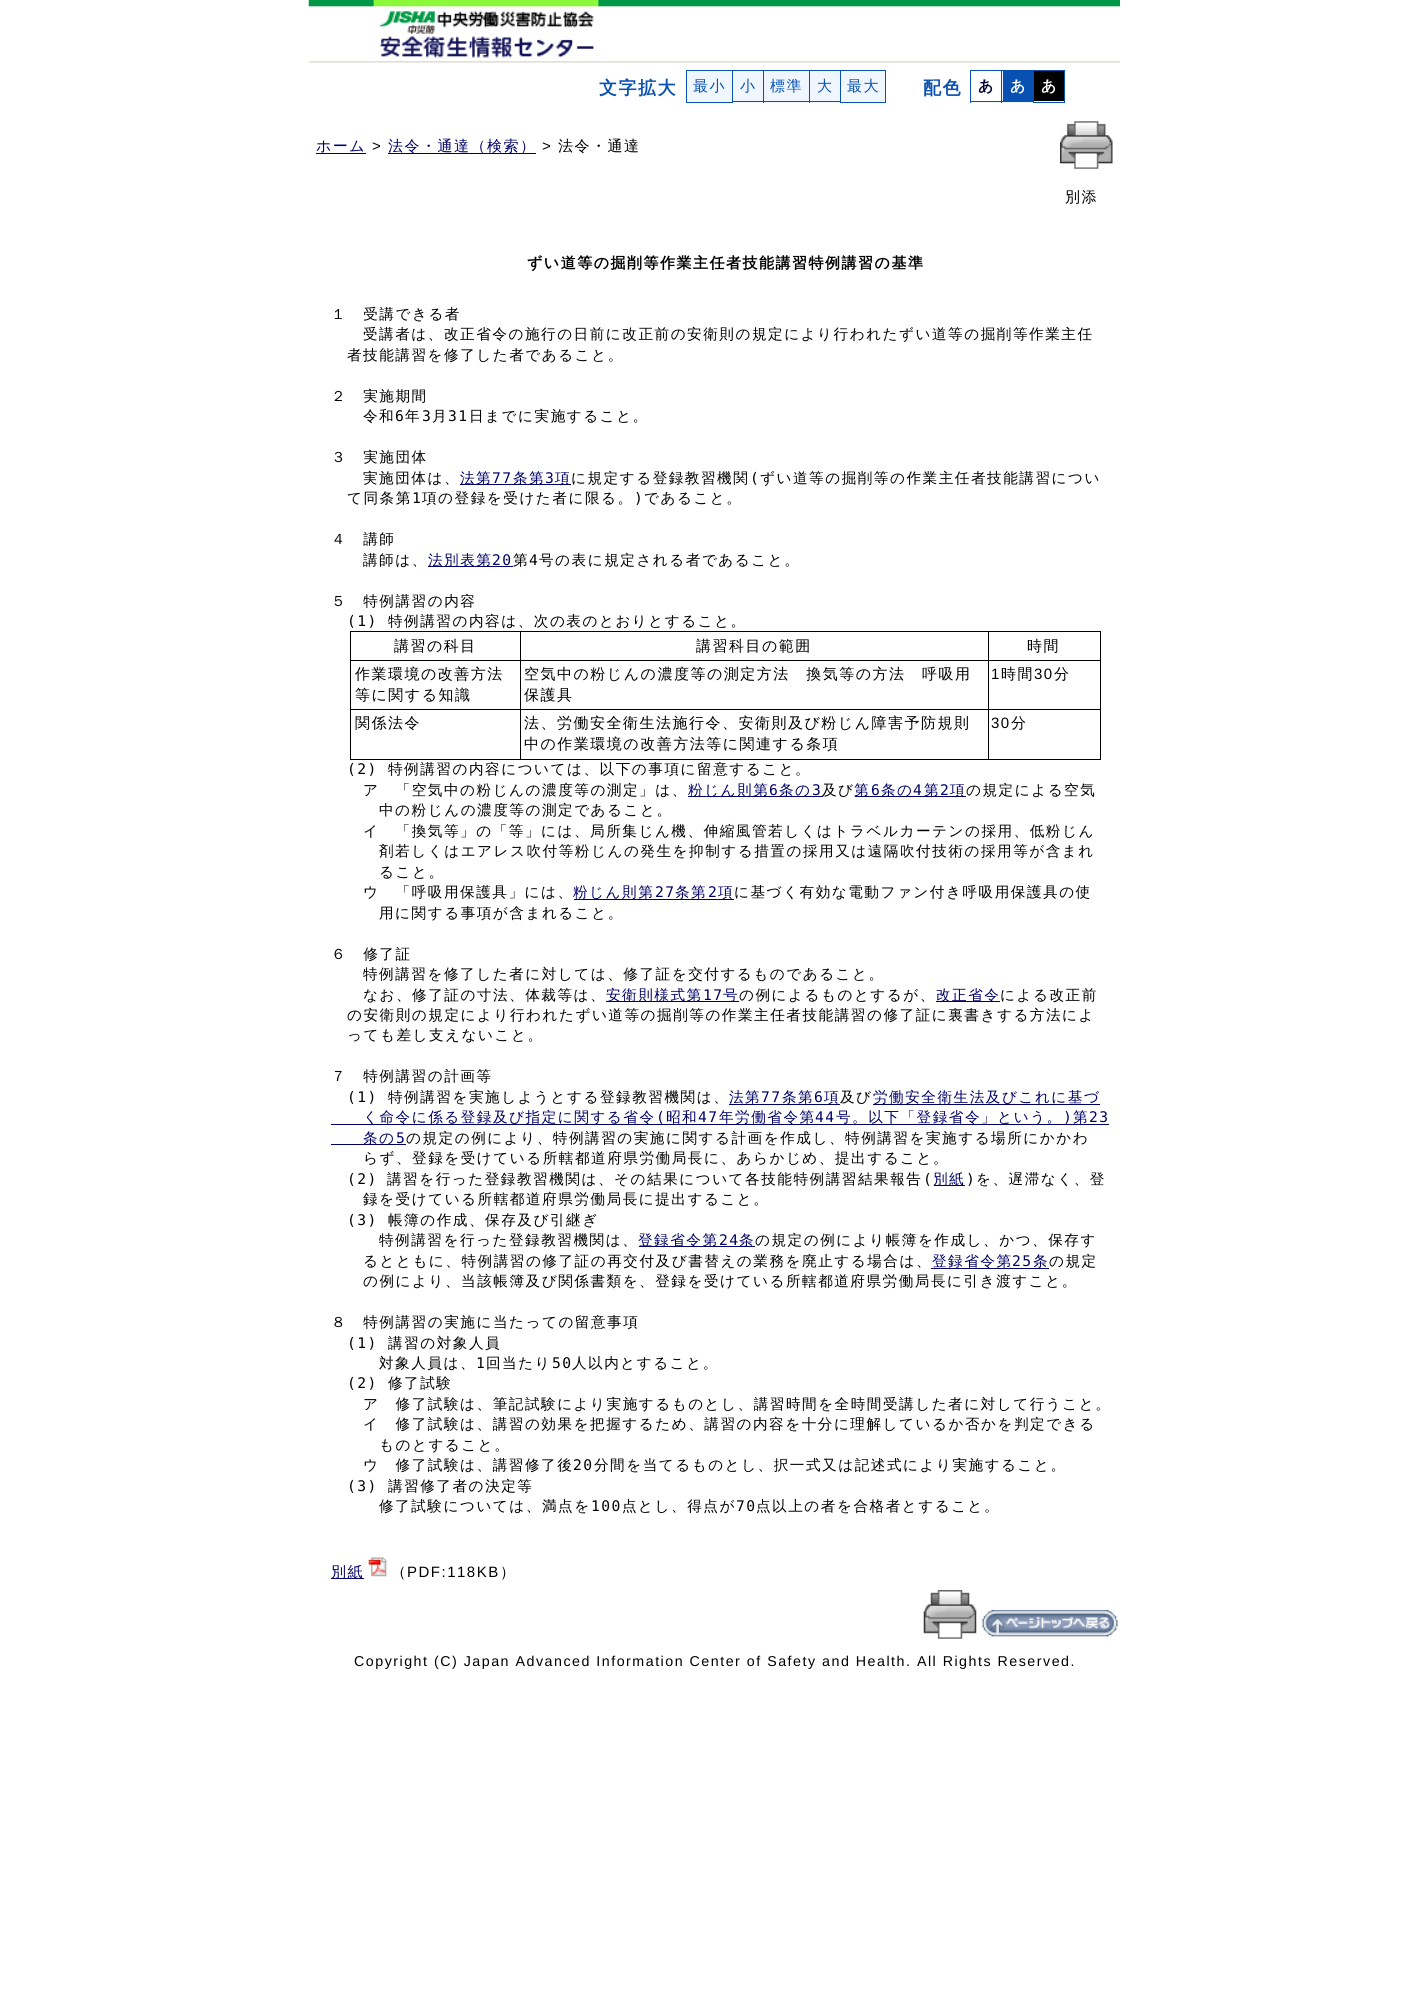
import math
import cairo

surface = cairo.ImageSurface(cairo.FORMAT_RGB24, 1428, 1989)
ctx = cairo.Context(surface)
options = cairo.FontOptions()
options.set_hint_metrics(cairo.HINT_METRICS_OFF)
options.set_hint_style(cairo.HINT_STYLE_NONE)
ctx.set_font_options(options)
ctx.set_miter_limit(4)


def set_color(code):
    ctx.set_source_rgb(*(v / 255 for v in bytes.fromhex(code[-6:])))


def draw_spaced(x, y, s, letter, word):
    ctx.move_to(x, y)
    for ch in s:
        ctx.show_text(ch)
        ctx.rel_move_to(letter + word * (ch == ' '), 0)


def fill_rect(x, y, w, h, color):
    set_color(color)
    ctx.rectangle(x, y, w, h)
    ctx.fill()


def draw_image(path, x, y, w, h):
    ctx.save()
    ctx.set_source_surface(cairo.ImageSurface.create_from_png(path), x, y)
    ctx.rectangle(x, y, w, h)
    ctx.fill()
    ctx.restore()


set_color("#ffffff")
ctx.paint()
draw_image("assets/img1.png", 308, 0, 812, 63)
ctx.select_font_face("WenQuanYi Zen Hei", cairo.FONT_SLANT_NORMAL, cairo.FONT_WEIGHT_BOLD)
ctx.set_font_size(18)
set_color("#0850b2")
draw_spaced(599, 94, "文字拡大", 1.5, 0)
set_color("#f0f6fd")
ctx.rectangle(686.5, 70.5, 46, 32)
ctx.fill_preserve()
set_color("#0850b2")
ctx.set_line_width(1)
ctx.stroke()
ctx.select_font_face("WenQuanYi Zen Hei Medium")
ctx.set_font_size(15)
draw_spaced(693, 91, "最小", 1.5, 0)
fill_rect(733, 71, 30, 32, "#f0f6fd")
fill_rect(733, 70, 107, 1, "#0850b2")
fill_rect(733, 101, 30, 1, "#0850b2")
draw_spaced(740, 91, "小", 1.5, 0)
fill_rect(764, 71, 45, 32, "#f0f6fd")
fill_rect(763, 101, 46, 1, "#0850b2")
fill_rect(763, 70, 1, 33, "#0850b2")
draw_spaced(770, 91, "標準", 1.5, 0)
fill_rect(810, 71, 30, 32, "#f0f6fd")
fill_rect(809, 101, 31, 1, "#0850b2")
fill_rect(809, 70, 1, 33, "#0850b2")
draw_spaced(817, 91, "大", 1.5, 0)
set_color("#f0f6fd")
ctx.rectangle(840.5, 70.5, 45, 32)
ctx.fill_preserve()
set_color("#0850b2")
ctx.stroke()
draw_spaced(847, 91, "最大", 1.5, 0)
ctx.select_font_face("WenQuanYi Zen Hei", cairo.FONT_SLANT_NORMAL, cairo.FONT_WEIGHT_BOLD)
ctx.set_font_size(18)
draw_spaced(923, 94, "配色", 1.5, 0)
fill_rect(971, 102, 30, 1, "#f0f6fd")
fill_rect(970, 70, 63, 1, "#0850b2")
fill_rect(970, 101, 31, 1, "#0850b2")
fill_rect(970, 70, 1, 33, "#0850b2")
ctx.set_font_size(15)
set_color("#000033")
draw_spaced(978, 91, "あ", 1.5, 0)
fill_rect(1002, 71, 31, 32, "#f0f6fd")
fill_rect(1001, 101, 32, 1, "#0850b2")
fill_rect(1001, 70, 1, 33, "#0850b2")
fill_rect(1003, 71, 30, 30, "#0850b2")
set_color("#ffffff")
draw_spaced(1010, 91, "あ", 1.5, 0)
fill_rect(1034, 101, 30, 1, "#f0f6fd")
ctx.rectangle(1033.5, 70.5, 31, 32)
set_color("#0850b2")
ctx.stroke()
fill_rect(1034, 71, 30, 30, "#000000")
set_color("#ffffff")
draw_spaced(1041, 91, "あ", 1.5, 0)
ctx.select_font_face("WenQuanYi Zen Hei Medium")
set_color("#000066")
draw_spaced(316, 151, "ホーム", 1.5, 0)
fill_rect(316, 153, 50, 1, "#000066")
ctx.select_font_face("Liberation Sans")
set_color("#000000")
draw_spaced(372, 151, ">", 1.5, 0)
fill_rect(388, 153, 148, 1, "#000066")
ctx.select_font_face("WenQuanYi Zen Hei Medium")
draw_spaced(388, 151, "法令・通達（検索）", 1.5, 0)
ctx.select_font_face("Liberation Sans")
set_color("#000000")
draw_spaced(542, 151, ">", 1.5, 0)
ctx.select_font_face("WenQuanYi Zen Hei Medium")
draw_spaced(558, 151, "法令・通達", 1.5, 0)
draw_image("assets/img2.png", 1060, 121, 53, 48)
draw_spaced(1065, 202, "別添", 1.5, 0)
ctx.select_font_face("WenQuanYi Zen Hei", cairo.FONT_SLANT_NORMAL, cairo.FONT_WEIGHT_BOLD)
draw_spaced(527, 268, "ずい道等の掘削等作業主任者技能講習特例講習の基準", 1.5, 0)
ctx.select_font_face("WenQuanYi Zen Hei Medium")
ctx.set_font_size(14.62)
draw_spaced(331, 319, "１　受講できる者", 1.5, 0)
draw_spaced(363, 339, "受講者は、改正省令の施行の日前に改正前の安衛則の規定により行われたずい道等の掘削等作業主任", 1.5, 0)
draw_spaced(347, 360, "者技能講習を修了した者であること。", 1.5, 0)
draw_spaced(331, 401, "２　実施期間", 1.5, 0)
draw_spaced(363, 421, "令和", 1.5, 0)
ctx.select_font_face("DejaVu Sans Mono")
draw_spaced(395, 421, "6", 1.5, 0)
ctx.select_font_face("WenQuanYi Zen Hei Medium")
draw_spaced(405, 421, "年", 1.5, 0)
ctx.select_font_face("DejaVu Sans Mono")
draw_spaced(422, 421, "3", 1.5, 0)
ctx.select_font_face("WenQuanYi Zen Hei Medium")
draw_spaced(432, 421, "月", 1.5, 0)
ctx.select_font_face("DejaVu Sans Mono")
draw_spaced(448, 421, "31", 1.5, 0)
ctx.select_font_face("WenQuanYi Zen Hei Medium")
draw_spaced(469, 421, "日までに実施すること。", 1.5, 0)
draw_spaced(331, 462, "３　実施団体", 1.5, 0)
draw_spaced(363, 483, "実施団体は、", 1.5, 0)
fill_rect(460, 484, 111, 1, "#000066")
draw_spaced(460, 483, "法第", 1.5, 0)
ctx.select_font_face("DejaVu Sans Mono")
draw_spaced(492, 483, "77", 1.5, 0)
ctx.select_font_face("WenQuanYi Zen Hei Medium")
draw_spaced(513, 483, "条第", 1.5, 0)
ctx.select_font_face("DejaVu Sans Mono")
draw_spaced(545, 483, "3", 1.5, 0)
ctx.select_font_face("WenQuanYi Zen Hei Medium")
draw_spaced(555, 483, "項", 1.5, 0)
set_color("#000000")
draw_spaced(571, 483, "に規定する登録教習機関", 1.5, 0)
ctx.select_font_face("DejaVu Sans Mono")
draw_spaced(750, 483, "(", 1.5, 0)
ctx.select_font_face("WenQuanYi Zen Hei Medium")
draw_spaced(760, 483, "ずい道等の掘削等の作業主任者技能講習につい", 1.5, 0)
draw_spaced(347, 503, "て同条第", 1.5, 0)
ctx.select_font_face("DejaVu Sans Mono")
draw_spaced(412, 503, "1", 1.5, 0)
ctx.select_font_face("WenQuanYi Zen Hei Medium")
draw_spaced(422, 503, "項の登録を受けた者に限る。", 1.5, 0)
ctx.select_font_face("DejaVu Sans Mono")
draw_spaced(634, 503, ")", 1.5, 0)
ctx.select_font_face("WenQuanYi Zen Hei Medium")
draw_spaced(644, 503, "であること。", 1.5, 0)
draw_spaced(331, 544, "４　講師", 1.5, 0)
draw_spaced(363, 565, "講師は、", 1.5, 0)
fill_rect(428, 566, 85, 1, "#000066")
draw_spaced(428, 565, "法別表第", 1.5, 0)
ctx.select_font_face("DejaVu Sans Mono")
draw_spaced(492, 565, "20", 1.5, 0)
ctx.select_font_face("WenQuanYi Zen Hei Medium")
set_color("#000000")
draw_spaced(513, 565, "第", 1.5, 0)
ctx.select_font_face("DejaVu Sans Mono")
draw_spaced(529, 565, "4", 1.5, 0)
ctx.select_font_face("WenQuanYi Zen Hei Medium")
draw_spaced(539, 565, "号の表に規定される者であること。", 1.5, 0)
draw_spaced(331, 606, "５　特例講習の内容", 1.5, 0)
ctx.select_font_face("DejaVu Sans Mono")
draw_spaced(347, 626, "(1)", 1.5, 0)
ctx.select_font_face("WenQuanYi Zen Hei Medium")
draw_spaced(388, 626, "特例講習の内容は、次の表のとおりとすること。", 1.5, 0)
fill_rect(350, 631, 751, 1, "#000000")
fill_rect(1100, 631, 1, 129, "#000000")
fill_rect(350, 759, 751, 1, "#000000")
fill_rect(350, 631, 1, 129, "#000000")
ctx.set_font_size(15)
draw_spaced(394, 651, "講習の科目", 1.5, 0)
fill_rect(988, 660, 113, 1, "#000000")
fill_rect(988, 709, 113, 1, "#000000")
fill_rect(988, 709, 1, 51, "#000000")
fill_rect(520, 709, 469, 1, "#000000")
fill_rect(988, 660, 1, 50, "#000000")
fill_rect(520, 660, 469, 1, "#000000")
fill_rect(520, 709, 1, 51, "#000000")
fill_rect(350, 709, 171, 1, "#000000")
fill_rect(520, 660, 1, 50, "#000000")
fill_rect(350, 660, 171, 1, "#000000")
fill_rect(520, 631, 1, 30, "#000000")
draw_spaced(696, 651, "講習科目の範囲", 1.5, 0)
fill_rect(988, 631, 1, 30, "#000000")
draw_spaced(1027, 651, "時間", 1.5, 0)
draw_spaced(355, 679, "作業環境の改善方法", 1.5, 0)
draw_spaced(355, 700, "等に関する知識", 1.5, 0)
draw_spaced(524, 679, "空気中の粉じんの濃度等の測定方法　換気等の方法　呼吸用", 1.5, 0)
draw_spaced(524, 700, "保護具", 1.5, 0)
ctx.select_font_face("Liberation Sans")
draw_spaced(991, 679, "1", 1.5, 0)
ctx.select_font_face("WenQuanYi Zen Hei Medium")
draw_spaced(1001, 679, "時間", 1.5, 0)
ctx.select_font_face("Liberation Sans")
draw_spaced(1034, 679, "30", 1.5, 0)
ctx.select_font_face("WenQuanYi Zen Hei Medium")
draw_spaced(1054, 679, "分", 1.5, 0)
draw_spaced(355, 728, "関係法令", 1.5, 0)
draw_spaced(524, 728, "法、労働安全衛生法施行令、安衛則及び粉じん障害予防規則", 1.5, 0)
draw_spaced(524, 749, "中の作業環境の改善方法等に関連する条項", 1.5, 0)
ctx.select_font_face("Liberation Sans")
draw_spaced(991, 728, "30", 1.5, 0)
ctx.select_font_face("WenQuanYi Zen Hei Medium")
draw_spaced(1011, 728, "分", 1.5, 0)
ctx.select_font_face("DejaVu Sans Mono")
ctx.set_font_size(14.62)
draw_spaced(347, 774, "(2)", 1.5, 0)
ctx.select_font_face("WenQuanYi Zen Hei Medium")
draw_spaced(388, 774, "特例講習の内容については、以下の事項に留意すること。", 1.5, 0)
draw_spaced(363, 795, "ア　「空気中の粉じんの濃度等の測定」は、", 1.5, 0)
fill_rect(688, 796, 135, 1, "#000066")
draw_spaced(688, 795, "粉じん則第", 1.5, 0)
ctx.select_font_face("DejaVu Sans Mono")
draw_spaced(769, 795, "6", 1.5, 0)
ctx.select_font_face("WenQuanYi Zen Hei Medium")
draw_spaced(779, 795, "条の", 1.5, 0)
ctx.select_font_face("DejaVu Sans Mono")
draw_spaced(812, 795, "3", 1.5, 0)
ctx.select_font_face("WenQuanYi Zen Hei Medium")
set_color("#000000")
draw_spaced(822, 795, "及び", 1.5, 0)
fill_rect(855, 796, 111, 1, "#000066")
draw_spaced(854, 795, "第", 1.5, 0)
ctx.select_font_face("DejaVu Sans Mono")
draw_spaced(871, 795, "6", 1.5, 0)
ctx.select_font_face("WenQuanYi Zen Hei Medium")
draw_spaced(881, 795, "条の", 1.5, 0)
ctx.select_font_face("DejaVu Sans Mono")
draw_spaced(913, 795, "4", 1.5, 0)
ctx.select_font_face("WenQuanYi Zen Hei Medium")
draw_spaced(924, 795, "第", 1.5, 0)
ctx.select_font_face("DejaVu Sans Mono")
draw_spaced(940, 795, "2", 1.5, 0)
ctx.select_font_face("WenQuanYi Zen Hei Medium")
draw_spaced(950, 795, "項", 1.5, 0)
set_color("#000000")
draw_spaced(966, 795, "の規定による空気", 1.5, 0)
draw_spaced(379, 815, "中の粉じんの濃度等の測定であること。", 1.5, 0)
draw_spaced(363, 836, "イ　「換気等」の「等」には、局所集じん機、伸縮風管若しくはトラベルカーテンの採用、低粉じん", 1.5, 0)
draw_spaced(379, 856, "剤若しくはエアレス吹付等粉じんの発生を抑制する措置の採用又は遠隔吹付技術の採用等が含まれ", 1.5, 0)
draw_spaced(379, 877, "ること。", 1.5, 0)
draw_spaced(363, 897, "ウ　「呼吸用保護具」には、", 1.5, 0)
fill_rect(574, 899, 160, 1, "#000066")
draw_spaced(573, 897, "粉じん則第", 1.5, 0)
ctx.select_font_face("DejaVu Sans Mono")
draw_spaced(655, 897, "27", 1.5, 0)
ctx.select_font_face("WenQuanYi Zen Hei Medium")
draw_spaced(675, 897, "条第", 1.5, 0)
ctx.select_font_face("DejaVu Sans Mono")
draw_spaced(708, 897, "2", 1.5, 0)
ctx.select_font_face("WenQuanYi Zen Hei Medium")
draw_spaced(718, 897, "項", 1.5, 0)
set_color("#000000")
draw_spaced(734, 897, "に基づく有効な電動ファン付き呼吸用保護具の使", 1.5, 0)
draw_spaced(379, 918, "用に関する事項が含まれること。", 1.5, 0)
draw_spaced(331, 959, "６　修了証", 1.5, 0)
draw_spaced(363, 979, "特例講習を修了した者に対しては、修了証を交付するものであること。", 1.5, 0)
draw_spaced(363, 1000, "なお、修了証の寸法、体裁等は、", 1.5, 0)
fill_rect(606, 1001, 133, 1, "#000066")
draw_spaced(606, 1000, "安衛則様式第", 1.5, 0)
ctx.select_font_face("DejaVu Sans Mono")
draw_spaced(703, 1000, "17", 1.5, 0)
ctx.select_font_face("WenQuanYi Zen Hei Medium")
draw_spaced(723, 1000, "号", 1.5, 0)
set_color("#000000")
draw_spaced(739, 1000, "の例によるものとするが、", 1.5, 0)
fill_rect(936, 1001, 64, 1, "#000066")
draw_spaced(936, 1000, "改正省令", 1.5, 0)
set_color("#000000")
draw_spaced(1000, 1000, "による改正前", 1.5, 0)
draw_spaced(347, 1020, "の安衛則の規定により行われたずい道等の掘削等の作業主任者技能講習の修了証に裏書きする方法によ", 1.5, 0)
draw_spaced(347, 1040, "っても差し支えないこと。", 1.5, 0)
draw_spaced(331, 1081, "７　特例講習の計画等", 1.5, 0)
ctx.select_font_face("DejaVu Sans Mono")
draw_spaced(347, 1102, "(1)", 1.5, 0)
ctx.select_font_face("WenQuanYi Zen Hei Medium")
draw_spaced(388, 1102, "特例講習を実施しようとする登録教習機関は、", 1.5, 0)
set_color("#000066")
draw_spaced(729, 1102, "法第", 1.5, 0)
ctx.select_font_face("DejaVu Sans Mono")
draw_spaced(761, 1102, "77", 1.5, 0)
ctx.select_font_face("WenQuanYi Zen Hei Medium")
draw_spaced(782, 1102, "条第", 1.5, 0)
ctx.select_font_face("DejaVu Sans Mono")
draw_spaced(814, 1102, "6", 1.5, 0)
fill_rect(729, 1104, 111, 1, "#000066")
ctx.select_font_face("WenQuanYi Zen Hei Medium")
draw_spaced(824, 1102, "項", 1.5, 0)
set_color("#000000")
draw_spaced(840, 1102, "及び", 1.5, 0)
fill_rect(873, 1104, 227, 1, "#000066")
draw_spaced(873, 1102, "労働安全衛生法及びこれに基づ", 1.5, 0)
fill_rect(331, 1124, 778, 1, "#000066")
draw_spaced(363, 1122, "く命令に係る登録及び指定に関する省令", 1.5, 0)
ctx.select_font_face("DejaVu Sans Mono")
draw_spaced(656, 1122, "(", 1.5, 0)
ctx.select_font_face("WenQuanYi Zen Hei Medium")
draw_spaced(666, 1122, "昭和", 1.5, 0)
ctx.select_font_face("DejaVu Sans Mono")
draw_spaced(698, 1122, "47", 1.5, 0)
ctx.select_font_face("WenQuanYi Zen Hei Medium")
draw_spaced(719, 1122, "年労働省令第", 1.5, 0)
ctx.select_font_face("DejaVu Sans Mono")
draw_spaced(815, 1122, "44", 1.5, 0)
ctx.select_font_face("WenQuanYi Zen Hei Medium")
draw_spaced(836, 1122, "号。以下「登録省令」という。", 1.5, 0)
ctx.select_font_face("DejaVu Sans Mono")
draw_spaced(1063, 1122, ")", 1.5, 0)
ctx.select_font_face("WenQuanYi Zen Hei Medium")
draw_spaced(1073, 1122, "第", 1.5, 0)
ctx.select_font_face("DejaVu Sans Mono")
draw_spaced(1089, 1122, "23", 1.5, 0)
fill_rect(331, 1144, 75, 1, "#000066")
ctx.select_font_face("WenQuanYi Zen Hei Medium")
draw_spaced(363, 1143, "条の", 1.5, 0)
ctx.select_font_face("DejaVu Sans Mono")
draw_spaced(396, 1143, "5", 1.5, 0)
ctx.select_font_face("WenQuanYi Zen Hei Medium")
set_color("#000000")
draw_spaced(406, 1143, "の規定の例により、特例講習の実施に関する計画を作成し、特例講習を実施する場所にかかわ", 1.5, 0)
draw_spaced(363, 1163, "らず、登録を受けている所轄都道府県労働局長に、あらかじめ、提出すること。", 1.5, 0)
ctx.select_font_face("DejaVu Sans Mono")
draw_spaced(347, 1184, "(2)", 1.5, 0)
ctx.select_font_face("WenQuanYi Zen Hei Medium")
draw_spaced(387, 1184, "講習を行った登録教習機関は、その結果について各技能特例講習結果報告", 1.5, 0)
ctx.select_font_face("DejaVu Sans Mono")
draw_spaced(923, 1184, "(", 1.5, 0)
fill_rect(934, 1185, 31, 1, "#000066")
ctx.select_font_face("WenQuanYi Zen Hei Medium")
draw_spaced(933, 1184, "別紙", 1.5, 0)
ctx.select_font_face("DejaVu Sans Mono")
set_color("#000000")
draw_spaced(966, 1184, ")", 1.5, 0)
ctx.select_font_face("WenQuanYi Zen Hei Medium")
draw_spaced(976, 1184, "を、遅滞なく、登", 1.5, 0)
draw_spaced(363, 1204, "録を受けている所轄都道府県労働局長に提出すること。", 1.5, 0)
ctx.select_font_face("DejaVu Sans Mono")
draw_spaced(347, 1225, "(3)", 1.5, 0)
ctx.select_font_face("WenQuanYi Zen Hei Medium")
draw_spaced(388, 1225, "帳簿の作成、保存及び引継ぎ", 1.5, 0)
draw_spaced(379, 1245, "特例講習を行った登録教習機関は、", 1.5, 0)
fill_rect(639, 1246, 116, 1, "#000066")
draw_spaced(638, 1245, "登録省令第", 1.5, 0)
ctx.select_font_face("DejaVu Sans Mono")
draw_spaced(719, 1245, "24", 1.5, 0)
ctx.select_font_face("WenQuanYi Zen Hei Medium")
draw_spaced(739, 1245, "条", 1.5, 0)
set_color("#000000")
draw_spaced(755, 1245, "の規定の例により帳簿を作成し、かつ、保存す", 1.5, 0)
draw_spaced(363, 1266, "るとともに、特例講習の修了証の再交付及び書替えの業務を廃止する場合は、", 1.5, 0)
fill_rect(931, 1268, 118, 1, "#000066")
draw_spaced(932, 1266, "登録省令第", 1.5, 0)
ctx.select_font_face("DejaVu Sans Mono")
draw_spaced(1012, 1266, "25", 1.5, 0)
ctx.select_font_face("WenQuanYi Zen Hei Medium")
draw_spaced(1033, 1266, "条", 1.5, 0)
set_color("#000000")
draw_spaced(1049, 1266, "の規定", 1.5, 0)
draw_spaced(363, 1286, "の例により、当該帳簿及び関係書類を、登録を受けている所轄都道府県労働局長に引き渡すこと。", 1.5, 0)
draw_spaced(331, 1327, "８　特例講習の実施に当たっての留意事項", 1.5, 0)
ctx.select_font_face("DejaVu Sans Mono")
draw_spaced(347, 1348, "(1)", 1.5, 0)
ctx.select_font_face("WenQuanYi Zen Hei Medium")
draw_spaced(388, 1348, "講習の対象人員", 1.5, 0)
draw_spaced(379, 1368, "対象人員は、", 1.5, 0)
ctx.select_font_face("DejaVu Sans Mono")
draw_spaced(476, 1368, "1", 1.5, 0)
ctx.select_font_face("WenQuanYi Zen Hei Medium")
draw_spaced(486, 1368, "回当たり", 1.5, 0)
ctx.select_font_face("DejaVu Sans Mono")
draw_spaced(552, 1368, "50", 1.5, 0)
ctx.select_font_face("WenQuanYi Zen Hei Medium")
draw_spaced(572, 1368, "人以内とすること。", 1.5, 0)
ctx.select_font_face("DejaVu Sans Mono")
draw_spaced(347, 1388, "(2)", 1.5, 0)
ctx.select_font_face("WenQuanYi Zen Hei Medium")
draw_spaced(388, 1388, "修了試験", 1.5, 0)
draw_spaced(363, 1409, "ア　修了試験は、筆記試験により実施するものとし、講習時間を全時間受講した者に対して行うこと。", 1.5, 0)
draw_spaced(363, 1429, "イ　修了試験は、講習の効果を把握するため、講習の内容を十分に理解しているか否かを判定できる", 1.5, 0)
draw_spaced(379, 1450, "ものとすること。", 1.5, 0)
draw_spaced(363, 1470, "ウ　修了試験は、講習修了後", 1.5, 0)
ctx.select_font_face("DejaVu Sans Mono")
draw_spaced(573, 1470, "20", 1.5, 0)
ctx.select_font_face("WenQuanYi Zen Hei Medium")
draw_spaced(594, 1470, "分間を当てるものとし、択一式又は記述式により実施すること。", 1.5, 0)
ctx.select_font_face("DejaVu Sans Mono")
draw_spaced(347, 1491, "(3)", 1.5, 0)
ctx.select_font_face("WenQuanYi Zen Hei Medium")
draw_spaced(388, 1491, "講習修了者の決定等", 1.5, 0)
draw_spaced(379, 1511, "修了試験については、満点を", 1.5, 0)
ctx.select_font_face("DejaVu Sans Mono")
draw_spaced(591, 1511, "100", 1.5, 0)
ctx.select_font_face("WenQuanYi Zen Hei Medium")
draw_spaced(622, 1511, "点とし、得点が", 1.5, 0)
ctx.select_font_face("DejaVu Sans Mono")
draw_spaced(736, 1511, "70", 1.5, 0)
ctx.select_font_face("WenQuanYi Zen Hei Medium")
draw_spaced(756, 1511, "点以上の者を合格者とすること。", 1.5, 0)
fill_rect(331, 1578, 33, 1, "#000066")
ctx.set_font_size(15)
draw_spaced(331, 1577, "別紙", 1.5, 0)
draw_image("assets/img3.png", 368, 1557, 19, 20)
set_color("#000000")
draw_spaced(391, 1577, "（", 1.5, 0)
ctx.select_font_face("Liberation Sans")
draw_spaced(407, 1577, "PDF:118KB", 1.5, 0)
ctx.select_font_face("WenQuanYi Zen Hei Medium")
draw_spaced(500, 1577, "）", 1.5, 0)
draw_image("assets/img4.png", 923, 1590, 54, 49)
draw_image("assets/img5.png", 982, 1609, 136, 28)
ctx.select_font_face("Liberation Sans")
ctx.set_font_size(14.25)
draw_spaced(354, 1666, "Copyright (C) Japan Advanced Information Center of Safety and Health. All Rights Reserved.", 1.5, 0)
surface.write_to_png("output.png")
